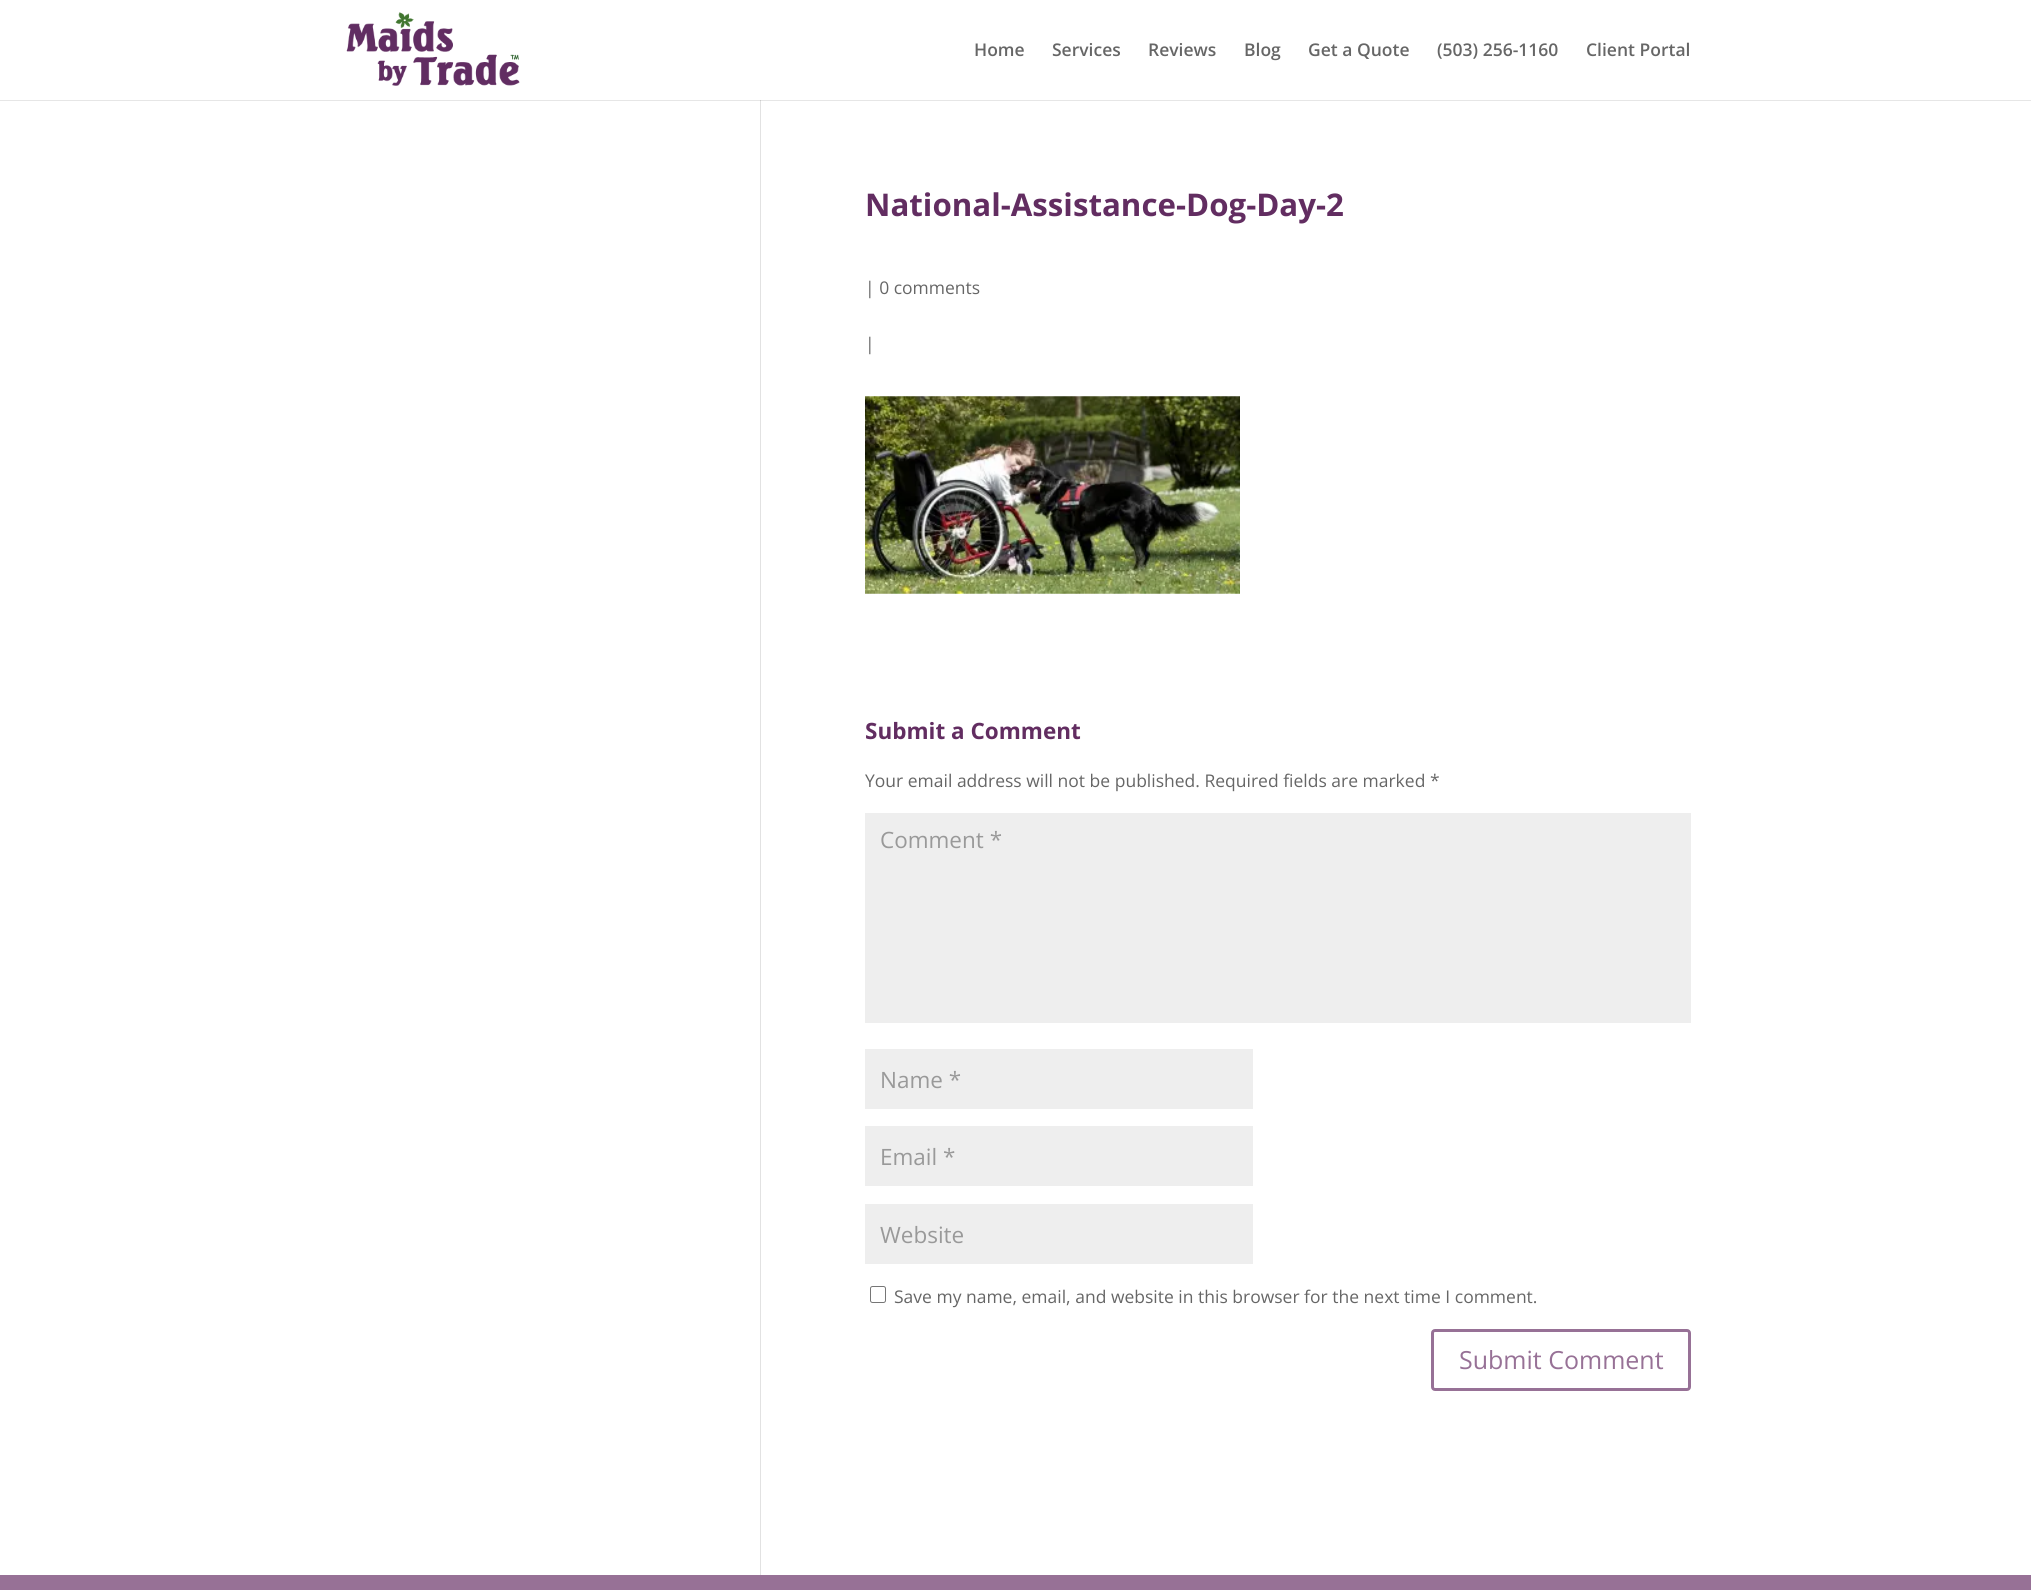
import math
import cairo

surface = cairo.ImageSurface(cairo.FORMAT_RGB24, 2031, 1590)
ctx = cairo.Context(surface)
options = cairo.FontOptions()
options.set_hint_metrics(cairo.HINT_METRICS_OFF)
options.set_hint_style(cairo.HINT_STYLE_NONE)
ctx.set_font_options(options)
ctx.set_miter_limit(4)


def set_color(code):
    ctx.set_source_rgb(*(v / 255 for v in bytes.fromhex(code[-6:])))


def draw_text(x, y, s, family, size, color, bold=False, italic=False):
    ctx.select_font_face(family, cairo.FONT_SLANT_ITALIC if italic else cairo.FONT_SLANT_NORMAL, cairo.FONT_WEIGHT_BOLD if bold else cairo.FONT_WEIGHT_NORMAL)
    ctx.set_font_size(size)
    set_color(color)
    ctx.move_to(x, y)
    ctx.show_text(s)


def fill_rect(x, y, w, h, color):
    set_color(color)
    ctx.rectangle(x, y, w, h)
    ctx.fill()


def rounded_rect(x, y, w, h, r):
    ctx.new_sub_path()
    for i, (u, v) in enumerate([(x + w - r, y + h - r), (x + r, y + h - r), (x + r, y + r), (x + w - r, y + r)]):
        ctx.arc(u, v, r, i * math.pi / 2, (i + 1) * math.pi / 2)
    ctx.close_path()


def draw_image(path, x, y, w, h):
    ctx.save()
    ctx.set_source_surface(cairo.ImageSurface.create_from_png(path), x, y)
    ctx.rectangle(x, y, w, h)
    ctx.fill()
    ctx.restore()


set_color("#ffffff")
ctx.paint()
fill_rect(0, 100, 2031, 1, "#e6e6e6")
draw_image("assets/img1.png", 346, 12, 174, 74)
draw_text(974, 56, "Home", "Open Sans SemiBold", 17.5, "#666666")
draw_text(1052, 56, "Services", "Open Sans SemiBold", 17.5, "#666666")
draw_text(1148, 56, "Reviews", "Open Sans SemiBold", 17.5, "#666666")
draw_text(1244, 56, "Blog", "Open Sans SemiBold", 17.5, "#666666")
draw_text(1308, 56, "Get a Quote", "Open Sans SemiBold", 17.5, "#666666")
draw_text(1437, 56, "(503) 256-1160", "Open Sans SemiBold", 17.5, "#666666")
draw_text(1586, 56, "Client Portal", "Open Sans SemiBold", 17.5, "#666666")
fill_rect(760, 100, 1, 1475, "#e2e2e2")
fill_rect(760, 100, 1, 1, "#cbcbcb")
draw_text(865, 216, "National-Assistance-Dog-Day-2", "Open Sans", 31.25, "#622d61", bold=True)
draw_text(865, 294, "| 0 comments", "Open Sans", 17.5, "#666666")
draw_text(865, 350, "|", "Open Sans", 17.5, "#666666")
draw_image("assets/img2.png", 865, 396, 375, 198)
draw_text(865, 739, "Submit a Comment", "Open Sans", 22.5, "#622d61", bold=True)
draw_text(865, 787, "Your email address will not be published. Required fields are marked *", "Open Sans", 17.5, "#666666")
fill_rect(865, 813, 826, 210, "#eeeeee")
draw_text(880, 848, "Comment *", "Open Sans", 22.5, "#999999")
fill_rect(865, 1049, 388, 60, "#eeeeee")
draw_text(880, 1088, "Name *", "Open Sans", 22.5, "#999999")
fill_rect(865, 1126, 388, 60, "#eeeeee")
draw_text(880, 1165, "Email *", "Open Sans", 22.5, "#999999")
fill_rect(865, 1204, 388, 60, "#eeeeee")
draw_text(880, 1243, "Website", "Open Sans", 22.5, "#999999")
rounded_rect(870.5, 1286.5, 15, 16, 2)
set_color("#767676")
ctx.set_line_width(1)
ctx.stroke()
draw_text(894, 1303, "Save my name, email, and website in this browser for the next time I comment.", "Open Sans", 17.5, "#666666")
rounded_rect(1432.5, 1330.5, 257, 59, 2.5)
set_color("#977196")
ctx.set_line_width(3)
ctx.stroke()
draw_text(1459, 1369, "Submit Comment", "Open Sans", 25, "#977196")
fill_rect(0, 1575, 2031, 15, "#977196")
surface.write_to_png("output.png")
